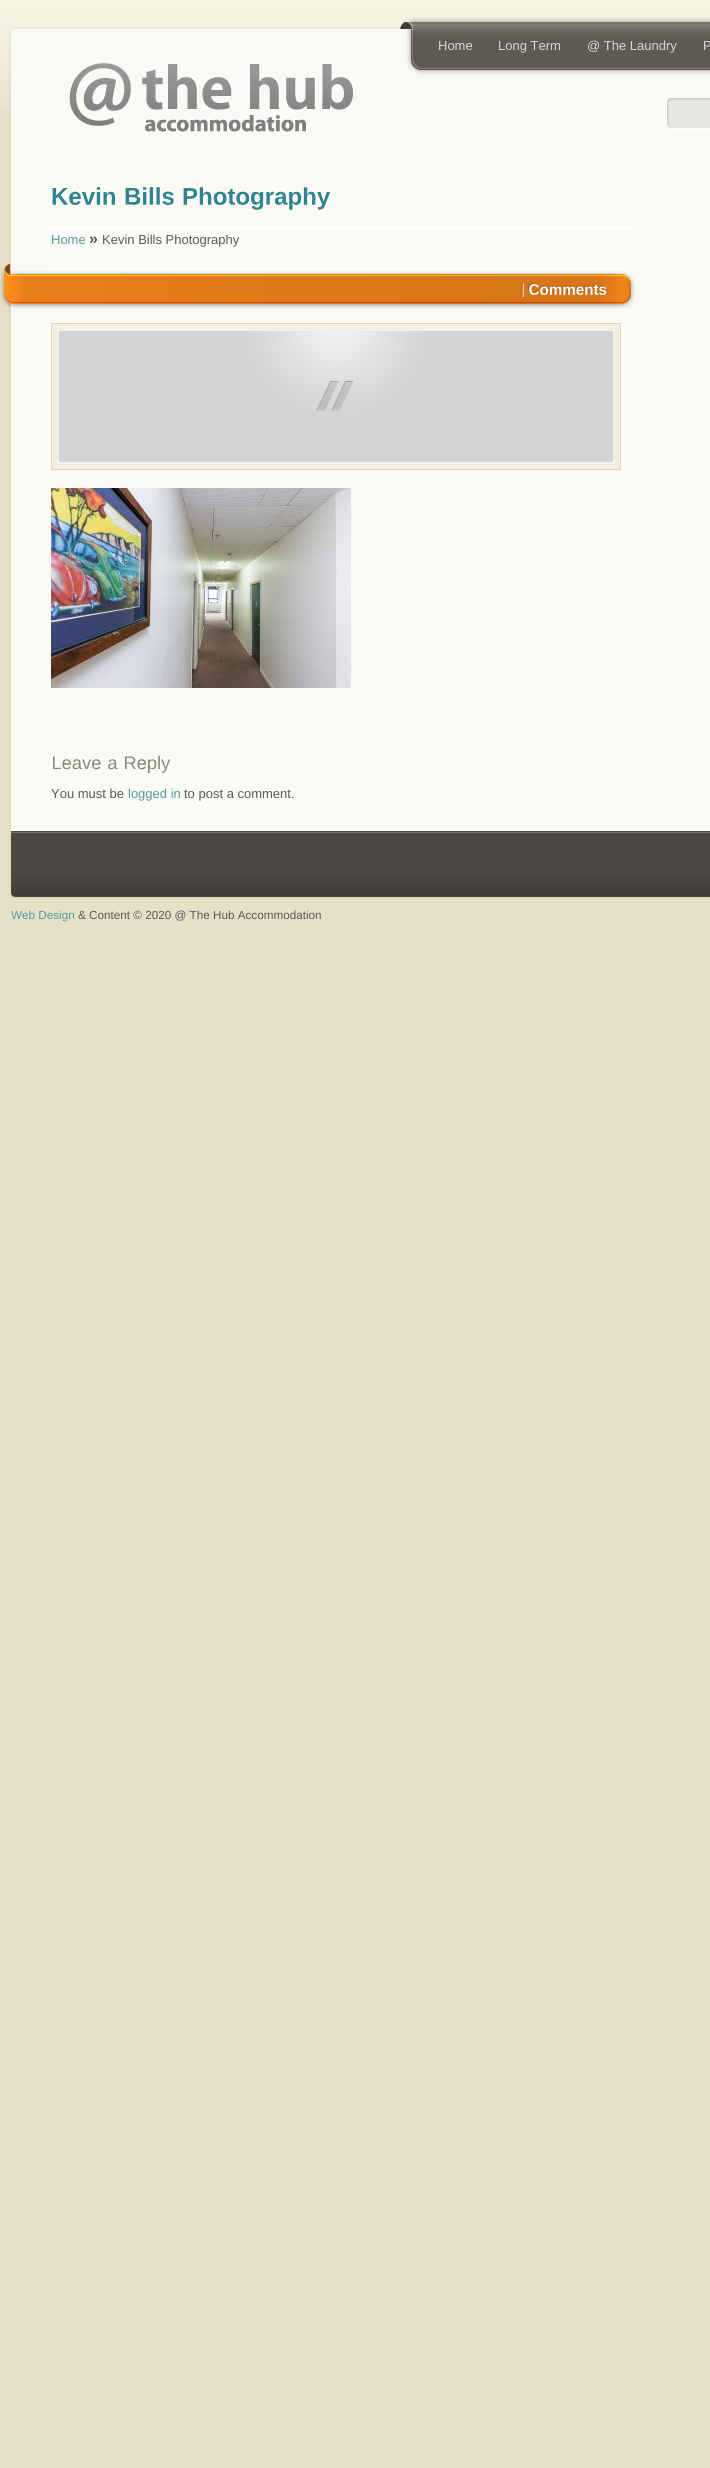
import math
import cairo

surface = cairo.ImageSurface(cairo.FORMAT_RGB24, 710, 2468)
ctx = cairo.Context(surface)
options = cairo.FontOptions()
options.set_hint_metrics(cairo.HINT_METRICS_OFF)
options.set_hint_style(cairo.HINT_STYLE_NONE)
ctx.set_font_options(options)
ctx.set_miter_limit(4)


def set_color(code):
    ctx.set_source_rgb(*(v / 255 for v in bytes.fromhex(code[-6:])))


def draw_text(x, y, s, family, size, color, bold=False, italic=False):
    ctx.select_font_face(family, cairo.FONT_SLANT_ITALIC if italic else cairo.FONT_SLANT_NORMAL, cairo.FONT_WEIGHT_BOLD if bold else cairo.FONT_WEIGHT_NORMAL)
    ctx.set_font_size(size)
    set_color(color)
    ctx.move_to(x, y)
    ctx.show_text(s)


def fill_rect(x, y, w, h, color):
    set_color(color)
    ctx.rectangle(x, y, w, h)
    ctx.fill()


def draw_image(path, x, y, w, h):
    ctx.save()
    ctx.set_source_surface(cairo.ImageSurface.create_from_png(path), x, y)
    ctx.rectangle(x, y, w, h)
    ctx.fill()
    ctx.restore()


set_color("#e6e0c8")
ctx.paint()
draw_image("assets/img1.png", 0, 0, 710, 108)
draw_image("assets/img2.png", 9, 27, 402, 8)
draw_image("assets/img3.png", 9, 35, 701, 133)
draw_image("assets/img4.png", 400, 17, 25, 58)
draw_image("assets/img5.png", 425, 17, 285, 58)
draw_text(438, 50, "Home", "Liberation Sans", 13, "#d9d8d5")
draw_text(498, 50, "Long Term", "Liberation Sans", 13, "#d9d8d5")
draw_text(587, 50, "@ The Laundry", "Liberation Sans", 13, "#d9d8d5")
draw_text(703, 50, "P", "Liberation Sans", 13, "#d9d8d5")
draw_image("assets/img6.png", 69, 63, 284, 69)
draw_image("assets/img7.png", 666, 97, 44, 32)
draw_image("assets/img8.png", 9, 168, 701, 663)
draw_image("assets/img9.png", 52, 187, 64, 19)
draw_image("assets/img10.png", 125, 187, 50, 19)
draw_image("assets/img11.png", 183, 187, 148, 24)
fill_rect(51, 226, 581, 3, "#fefefe")
draw_text(51, 244, "Home", "Liberation Sans", 13, "#579b9b")
draw_text(89, 244, "»", "Liberation Sans", 16, "#595959", bold=True)
draw_text(102, 244, "Kevin Bills Photography", "Liberation Sans", 13, "#595959")
draw_image("assets/img12.png", 0, 263, 50, 46)
draw_image("assets/img13.png", 50, 271, 585, 38)
draw_image("assets/img14.png", 521, 282, 3, 15)
draw_image("assets/img15.png", 528, 283, 79, 12)
set_color("#f1eee0")
ctx.rectangle(51.5, 323.5, 569, 146)
ctx.fill_preserve()
set_color("#d9d4bd")
ctx.set_line_width(1)
ctx.stroke()
ctx.rectangle(57.5, 329.5, 557, 134)
set_color("#f3f3f3")
ctx.stroke()
draw_image("assets/img16.png", 58, 330, 556, 133)
draw_image("assets/img17.png", 51, 488, 300, 200)
draw_image("assets/img18.png", 53, 756, 48, 14)
draw_image("assets/img19.png", 108, 759, 10, 11)
draw_image("assets/img20.png", 125, 755, 46, 18)
draw_text(51, 798, "You must be", "Liberation Sans", 13, "#595959")
draw_text(128, 798, "logged in", "Liberation Sans", 13, "#579b9b")
draw_text(184, 798, "to post a comment.", "Liberation Sans", 13, "#595959")
draw_image("assets/img21.png", 9, 831, 701, 2)
draw_image("assets/img22.png", 9, 833, 701, 35)
draw_image("assets/img23.png", 9, 868, 701, 31)
draw_text(11, 919, "Web Design", "Liberation Sans", 11.7, "#579b9b")
draw_text(78, 919, "& Content © 2020 @ The Hub Accommodation", "Liberation Sans", 11.7, "#595959")
surface.write_to_png("output.png")
